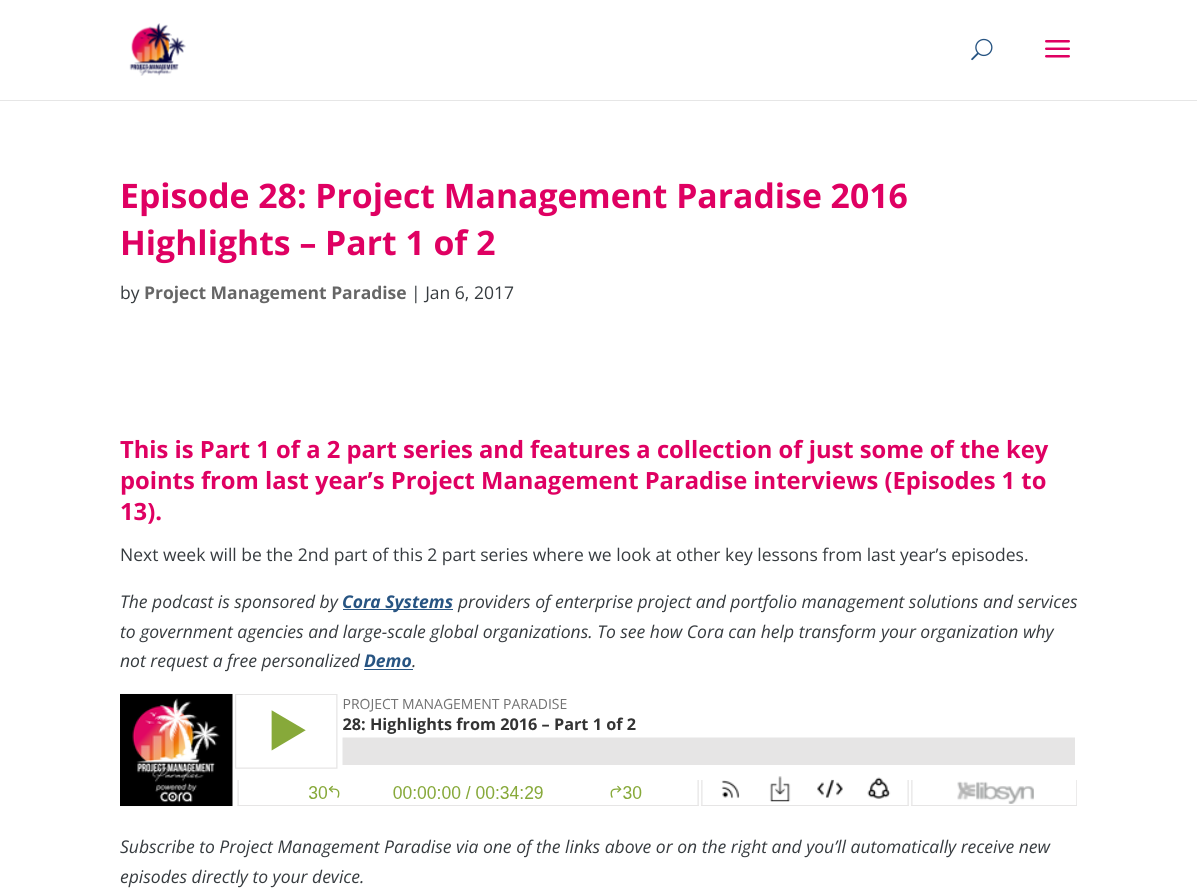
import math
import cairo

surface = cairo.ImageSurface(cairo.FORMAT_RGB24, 1197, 892)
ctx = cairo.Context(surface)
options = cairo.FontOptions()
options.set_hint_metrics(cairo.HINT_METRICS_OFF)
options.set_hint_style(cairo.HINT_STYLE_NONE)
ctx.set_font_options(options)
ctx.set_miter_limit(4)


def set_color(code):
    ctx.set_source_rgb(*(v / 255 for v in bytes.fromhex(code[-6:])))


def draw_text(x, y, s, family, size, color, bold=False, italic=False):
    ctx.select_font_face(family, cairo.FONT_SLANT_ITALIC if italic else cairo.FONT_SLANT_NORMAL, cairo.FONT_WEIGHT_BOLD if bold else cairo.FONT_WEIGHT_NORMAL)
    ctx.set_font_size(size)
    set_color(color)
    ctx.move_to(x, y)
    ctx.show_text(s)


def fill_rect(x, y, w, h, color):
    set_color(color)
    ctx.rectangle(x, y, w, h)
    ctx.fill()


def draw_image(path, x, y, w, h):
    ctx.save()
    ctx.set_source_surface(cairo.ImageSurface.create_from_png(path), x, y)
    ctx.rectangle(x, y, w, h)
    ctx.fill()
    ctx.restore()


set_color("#ffffff")
ctx.paint()
set_color("#e6e6e6")
ctx.new_path()
ctx.move_to(0, 100)
ctx.line_to(0, 101)
ctx.line_to(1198, 101)
ctx.line_to(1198, 1)
ctx.line_to(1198, 100)
ctx.close_path()
ctx.fill()
draw_image("assets/img1.png", 129, 23, 57, 53)
draw_image("assets/img2.png", 971, 38, 22, 23)
draw_image("assets/img3.png", 1045, 40, 25, 18)
draw_text(120, 208, "Episode 28: Project Management Paradise 2016", "Open Sans", 33.75, "#df0062", bold=True)
draw_text(120, 255, "Highlights – Part 1 of 2", "Open Sans", 33.75, "#df0062", bold=True)
draw_text(120, 299, "by", "Open Sans", 17.5, "#363b3f")
draw_text(144, 299, "Project Management Paradise", "Open Sans", 17.5, "#666666", bold=True)
draw_text(411, 299, "| Jan 6, 2017", "Open Sans", 17.5, "#363b3f")
draw_text(120, 458, "This is Part 1 of a 2 part series and features a collection of just some of the key", "Open Sans", 23.75, "#df0062", bold=True)
draw_text(120, 489, "points from last year’s Project Management Paradise interviews (Episodes 1 to", "Open Sans", 23.75, "#df0062", bold=True)
draw_text(120, 520, "13).", "Open Sans", 23.75, "#df0062", bold=True)
draw_text(120, 561, "Next week will be the 2nd part of this 2 part series where we look at other key lessons from last year’s episodes.", "Open Sans", 17.5, "#363b3f")
draw_text(120, 608, "The podcast is sponsored by", "Open Sans", 17.5, "#363b3f", italic=True)
fill_rect(343, 609, 110, 1, "#275482")
draw_text(342, 608, "Cora Systems", "Open Sans", 17.5, "#275482", bold=True, italic=True)
draw_text(458, 608, "providers of enterprise project and portfolio management solutions and services", "Open Sans", 17.5, "#363b3f", italic=True)
draw_text(120, 638, "to government agencies and large-scale global organizations. To see how Cora can help transform your organization why", "Open Sans", 17.5, "#363b3f", italic=True)
draw_text(120, 667, "not request a free personalized", "Open Sans", 17.5, "#363b3f", italic=True)
draw_text(364, 667, "Demo", "Open Sans", 17.5, "#275482", bold=True, italic=True)
draw_text(412, 667, ".", "Open Sans", 17.5, "#363b3f", italic=True)
fill_rect(364, 669, 49, 1, "#275482")
draw_image("assets/img4.png", 120, 693, 957, 114)
draw_text(120, 853, "Subscribe to Project Management Paradise via one of the links above or on the right and you’ll automatically receive new", "Open Sans", 17.5, "#363b3f", italic=True)
draw_text(120, 883, "episodes directly to your device.", "Open Sans", 17.5, "#363b3f", italic=True)
surface.write_to_png("output.png")
